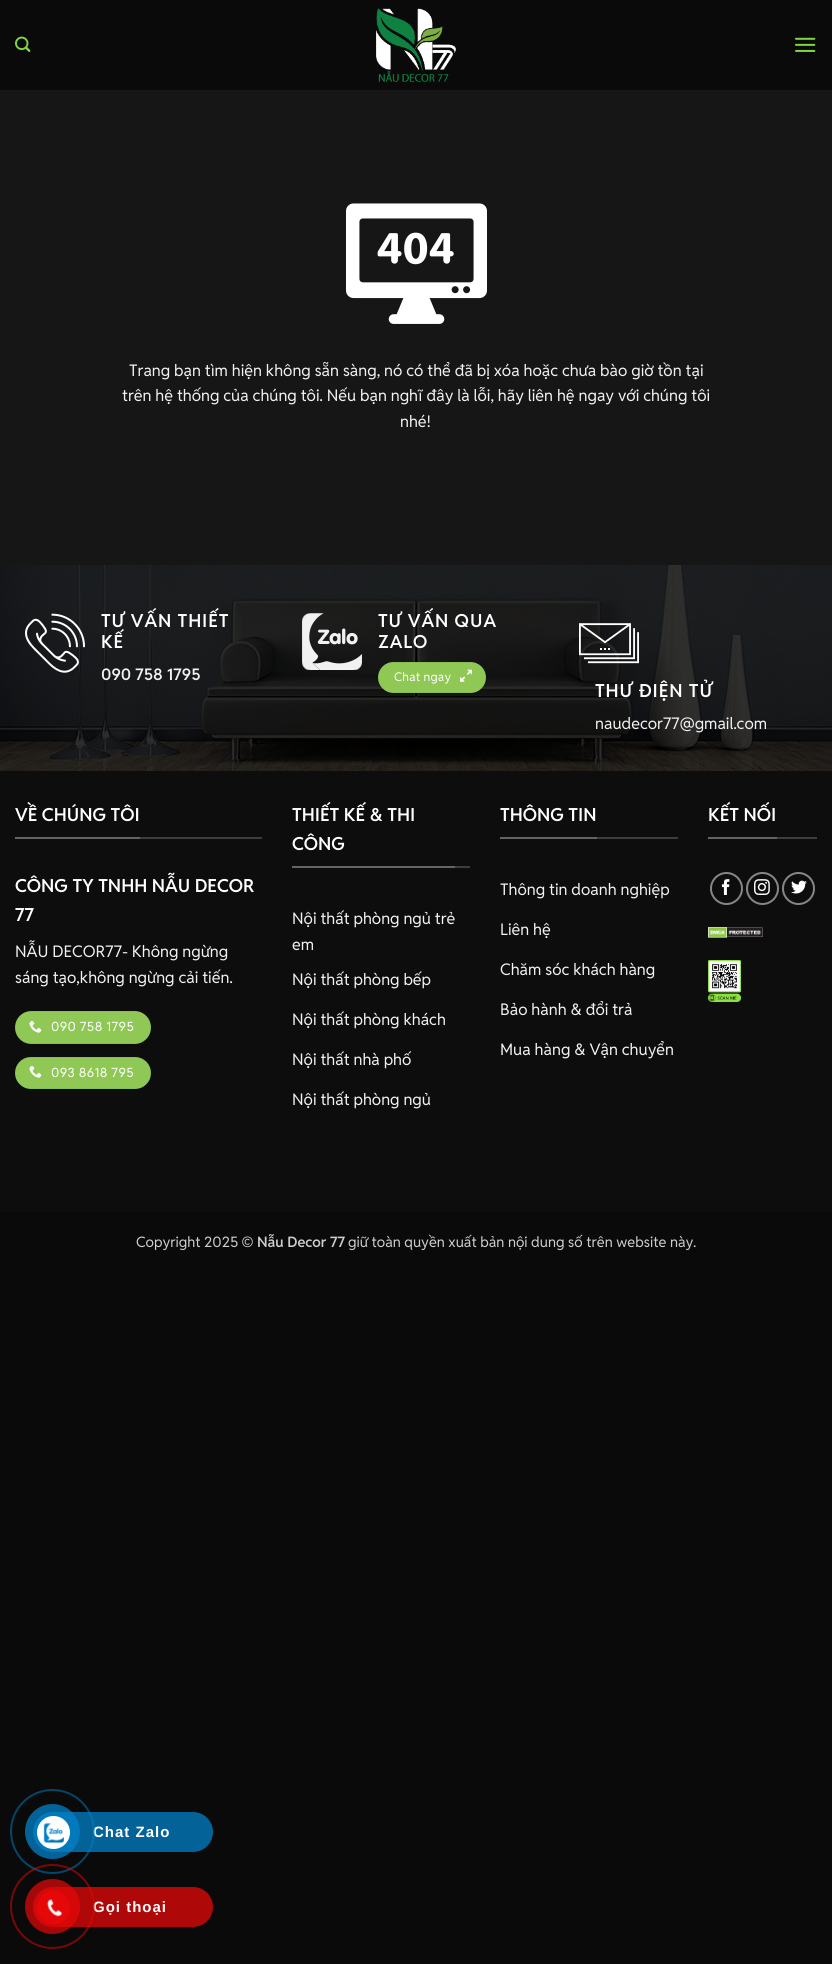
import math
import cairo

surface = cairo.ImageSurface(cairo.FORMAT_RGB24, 832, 1964)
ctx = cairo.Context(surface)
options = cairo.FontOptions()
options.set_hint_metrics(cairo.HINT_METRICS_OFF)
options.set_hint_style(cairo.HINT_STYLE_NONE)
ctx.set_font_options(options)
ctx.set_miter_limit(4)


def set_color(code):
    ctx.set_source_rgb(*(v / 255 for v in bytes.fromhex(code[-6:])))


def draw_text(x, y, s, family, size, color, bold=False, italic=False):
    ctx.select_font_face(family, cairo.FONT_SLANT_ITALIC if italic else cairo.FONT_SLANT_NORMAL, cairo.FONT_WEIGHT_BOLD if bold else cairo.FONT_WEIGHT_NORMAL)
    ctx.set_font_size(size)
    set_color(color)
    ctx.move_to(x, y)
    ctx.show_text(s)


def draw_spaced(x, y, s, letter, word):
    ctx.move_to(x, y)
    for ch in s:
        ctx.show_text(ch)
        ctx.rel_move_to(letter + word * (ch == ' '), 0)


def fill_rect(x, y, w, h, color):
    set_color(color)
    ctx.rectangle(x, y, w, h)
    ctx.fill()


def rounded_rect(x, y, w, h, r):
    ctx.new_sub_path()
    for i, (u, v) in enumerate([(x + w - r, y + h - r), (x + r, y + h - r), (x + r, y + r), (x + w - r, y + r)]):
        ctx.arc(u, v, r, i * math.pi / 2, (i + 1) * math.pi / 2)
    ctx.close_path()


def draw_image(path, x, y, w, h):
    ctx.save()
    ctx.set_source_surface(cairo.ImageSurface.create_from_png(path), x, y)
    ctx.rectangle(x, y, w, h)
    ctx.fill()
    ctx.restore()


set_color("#0a0a0a")
ctx.paint()
fill_rect(0, 90, 832, 475, "#161616")
draw_image("assets/img1.png", 15, 36, 16, 16)
draw_image("assets/img2.png", 376, 8, 80, 74)
draw_image("assets/img3.png", 795, 37, 21, 15)
draw_image("assets/img4.png", 346, 203, 141, 121)
draw_text(129, 376, "Trang bạn tìm hiện không sẵn sàng, nó có thể đã bị xóa hoặc chưa bào giờ tồn tại", "Reddit Sans", 16, "#f1f1f1")
draw_text(122, 401, "trên hệ thống của chúng tôi. Nếu bạn nghĩ đây là lỗi, hãy liên hệ ngay với chúng tôi", "Reddit Sans", 16, "#f1f1f1")
draw_text(400, 427, "nhé!", "Reddit Sans", 16, "#f1f1f1")
draw_image("assets/img5.png", 0, 565, 832, 206)
draw_image("assets/img6.png", 25, 613, 60, 60)
ctx.select_font_face("Reddit Sans SemiBold")
ctx.set_font_size(18)
set_color("#ffffff")
draw_spaced(101, 627, "TƯ VẤN THIẾT", 0.9, 0)
draw_spaced(101, 648, "KẾ", 0.9, 0)
draw_text(101, 680, "090 758 1795", "Reddit Sans SemiBold", 16, "#f1f1f1")
draw_image("assets/img7.png", 302, 613, 60, 57)
ctx.set_font_size(18)
set_color("#ffffff")
draw_spaced(378, 627, "TƯ VẤN QUA", 0.9, 0)
draw_spaced(378, 648, "ZALO", 0.9, 0)
set_color("#90c855")
rounded_rect(378, 662, 108, 31, 15.5)
ctx.fill()
ctx.rectangle(378.5, 662.5, 107, 30)
ctx.set_source_rgba(0, 0, 0, 0.05)
ctx.set_line_width(1)
ctx.stroke()
ctx.select_font_face("Reddit Sans")
ctx.set_font_size(12)
set_color("#ffffff")
draw_spaced(394, 681, "Chat ngay", 0.25, 0)
draw_image("assets/img8.png", 460, 669, 12, 13)
draw_image("assets/img9.png", 579, 623, 60, 41)
ctx.select_font_face("Reddit Sans SemiBold")
ctx.set_font_size(18)
draw_spaced(595, 697, "THƯ ĐIỆN TỬ", 0.9, 0)
draw_text(595, 729, "naudecor77@gmail.com", "Reddit Sans", 16, "#f1f1f1")
fill_rect(0, 771, 832, 441, "#0d0d0d")
fill_rect(140, 837, 122, 2, "#3d3d3d")
fill_rect(15, 837, 125, 2, "#646464")
draw_text(15, 821, "VỀ CHÚNG TÔI", "Reddit Sans SemiBold", 18, "#ffffff")
draw_text(15, 892, "CÔNG TY TNHH NẪU DECOR", "Reddit Sans SemiBold", 18, "#ffffff")
draw_text(15, 921, "77", "Reddit Sans SemiBold", 18, "#ffffff")
draw_text(15, 957, "NẪU DECOR77- Không ngừng", "Reddit Sans", 16, "#f1f1f1")
draw_text(15, 983, "sáng tạo,không ngừng cải tiến.", "Reddit Sans", 16, "#f1f1f1")
set_color("#90c855")
rounded_rect(15, 1011, 136, 33, 16.5)
ctx.fill()
ctx.rectangle(15.5, 1011.5, 135, 32)
ctx.set_source_rgba(0, 0, 0, 0.05)
ctx.stroke()
draw_image("assets/img10.png", 29, 1020, 13, 13)
ctx.set_font_size(12.75)
set_color("#ffffff")
draw_spaced(51, 1031, "090 758 1795", 0.4, 0)
set_color("#90c855")
rounded_rect(15, 1057, 136, 32, 16)
ctx.fill()
ctx.rectangle(15.5, 1057.5, 135, 31)
ctx.set_source_rgba(0, 0, 0, 0.05)
ctx.stroke()
draw_image("assets/img10.png", 29, 1065, 13, 13)
set_color("#ffffff")
draw_spaced(51, 1077, "093 8618 795", 0.4, 0)
fill_rect(455, 866, 15, 2, "#3d3d3d")
fill_rect(292, 866, 163, 2, "#646464")
draw_text(292, 821, "THIẾT KẾ & THI", "Reddit Sans SemiBold", 18, "#ffffff")
draw_text(292, 850, "CÔNG", "Reddit Sans SemiBold", 18, "#ffffff")
draw_text(292, 924, "Nội thất phòng ngủ trẻ", "Reddit Sans", 16, "#f1f1f1")
draw_text(292, 950, "em", "Reddit Sans", 16, "#f1f1f1")
draw_text(292, 985, "Nội thất phòng bếp", "Reddit Sans", 16, "#f1f1f1")
draw_text(292, 1025, "Nội thất phòng khách", "Reddit Sans", 16, "#f1f1f1")
draw_text(292, 1065, "Nội thất nhà phố", "Reddit Sans", 16, "#f1f1f1")
draw_text(292, 1105, "Nội thất phòng ngủ", "Reddit Sans", 16, "#f1f1f1")
fill_rect(597, 837, 81, 2, "#3d3d3d")
fill_rect(500, 837, 97, 2, "#646464")
draw_text(500, 821, "THÔNG TIN", "Reddit Sans SemiBold", 18, "#ffffff")
draw_text(500, 895, "Thông tin doanh nghiệp", "Reddit Sans", 16, "#f1f1f1")
draw_text(500, 935, "Liên hệ", "Reddit Sans", 16, "#f1f1f1")
draw_text(500, 975, "Chăm sóc khách hàng", "Reddit Sans", 16, "#f1f1f1")
draw_text(500, 1015, "Bảo hành & đổi trả", "Reddit Sans", 16, "#f1f1f1")
draw_text(500, 1055, "Mua hàng & Vận chuyển", "Reddit Sans", 16, "#f1f1f1")
fill_rect(777, 837, 40, 2, "#3d3d3d")
fill_rect(708, 837, 69, 2, "#646464")
draw_text(708, 821, "KẾT NỐI", "Reddit Sans SemiBold", 18, "#ffffff")
ctx.new_path()
ctx.arc(726.5, 888.5, 15.5, 0, 2 * math.pi)
set_color("#868686")
ctx.set_line_width(2)
ctx.stroke()
draw_image("assets/img11.png", 721, 879, 9, 16)
ctx.arc(762.5, 888.5, 15.5, 0, 2 * math.pi)
ctx.stroke()
draw_image("assets/img12.png", 754, 879, 16, 16)
ctx.arc(798.5, 888.5, 15.5, 0, 2 * math.pi)
ctx.stroke()
draw_image("assets/img13.png", 791, 880, 16, 14)
draw_image("assets/img14.png", 708, 927, 55, 11)
draw_image("assets/img15.png", 708, 960, 33, 42)
draw_text(136, 1247, "Copyright 2025 ©", "Reddit Sans", 14.4, "#cecece")
draw_text(257, 1247, "Nẫu Decor 77", "Reddit Sans SemiBold", 14.4, "#cecece")
draw_text(348, 1247, "giữ toàn quyền xuất bản nội dung số trên website này.", "Reddit Sans", 14.4, "#cecece")
set_color("#036298")
rounded_rect(33, 1812, 180, 40, 20)
ctx.fill()
ctx.select_font_face("Liberation Sans", cairo.FONT_SLANT_NORMAL, cairo.FONT_WEIGHT_BOLD)
ctx.set_font_size(15)
set_color("#ffffff")
draw_spaced(93, 1837, "Chat Zalo", 1, 0)
ctx.new_path()
ctx.arc(52.5, 1831.5, 41.5, 0, 2 * math.pi)
ctx.set_source_rgba(0.004, 0.502, 0.78, 0.5)
ctx.stroke()
ctx.set_source_rgba(0.004, 0.502, 0.78, 0.75)
ctx.arc(52.5, 1831.5, 27.5, 0, 2 * math.pi)
ctx.fill()
set_color("#ffffff")
ctx.arc(53.5, 1832.5, 16.5, 0, 2 * math.pi)
ctx.fill()
draw_image("assets/img16.png", 43, 1822, 21, 21)
set_color("#af0808")
rounded_rect(33, 1887, 180, 40, 20)
ctx.fill()
set_color("#ffffff")
draw_spaced(93, 1912, "Gọi thoại", 1, 0)
ctx.new_path()
ctx.arc(52.5, 1906.5, 41.5, 0, 2 * math.pi)
ctx.set_source_rgba(0.902, 0.031, 0.031, 0.5)
ctx.stroke()
ctx.set_source_rgba(0.902, 0.031, 0.031, 0.7)
ctx.arc(52.5, 1906.5, 27.5, 0, 2 * math.pi)
ctx.fill()
set_color("#e60808")
ctx.arc(53.5, 1907.5, 16.5, 0, 2 * math.pi)
ctx.fill()
draw_image("assets/img17.png", 47, 1899, 16, 18)
surface.write_to_png("output.png")
